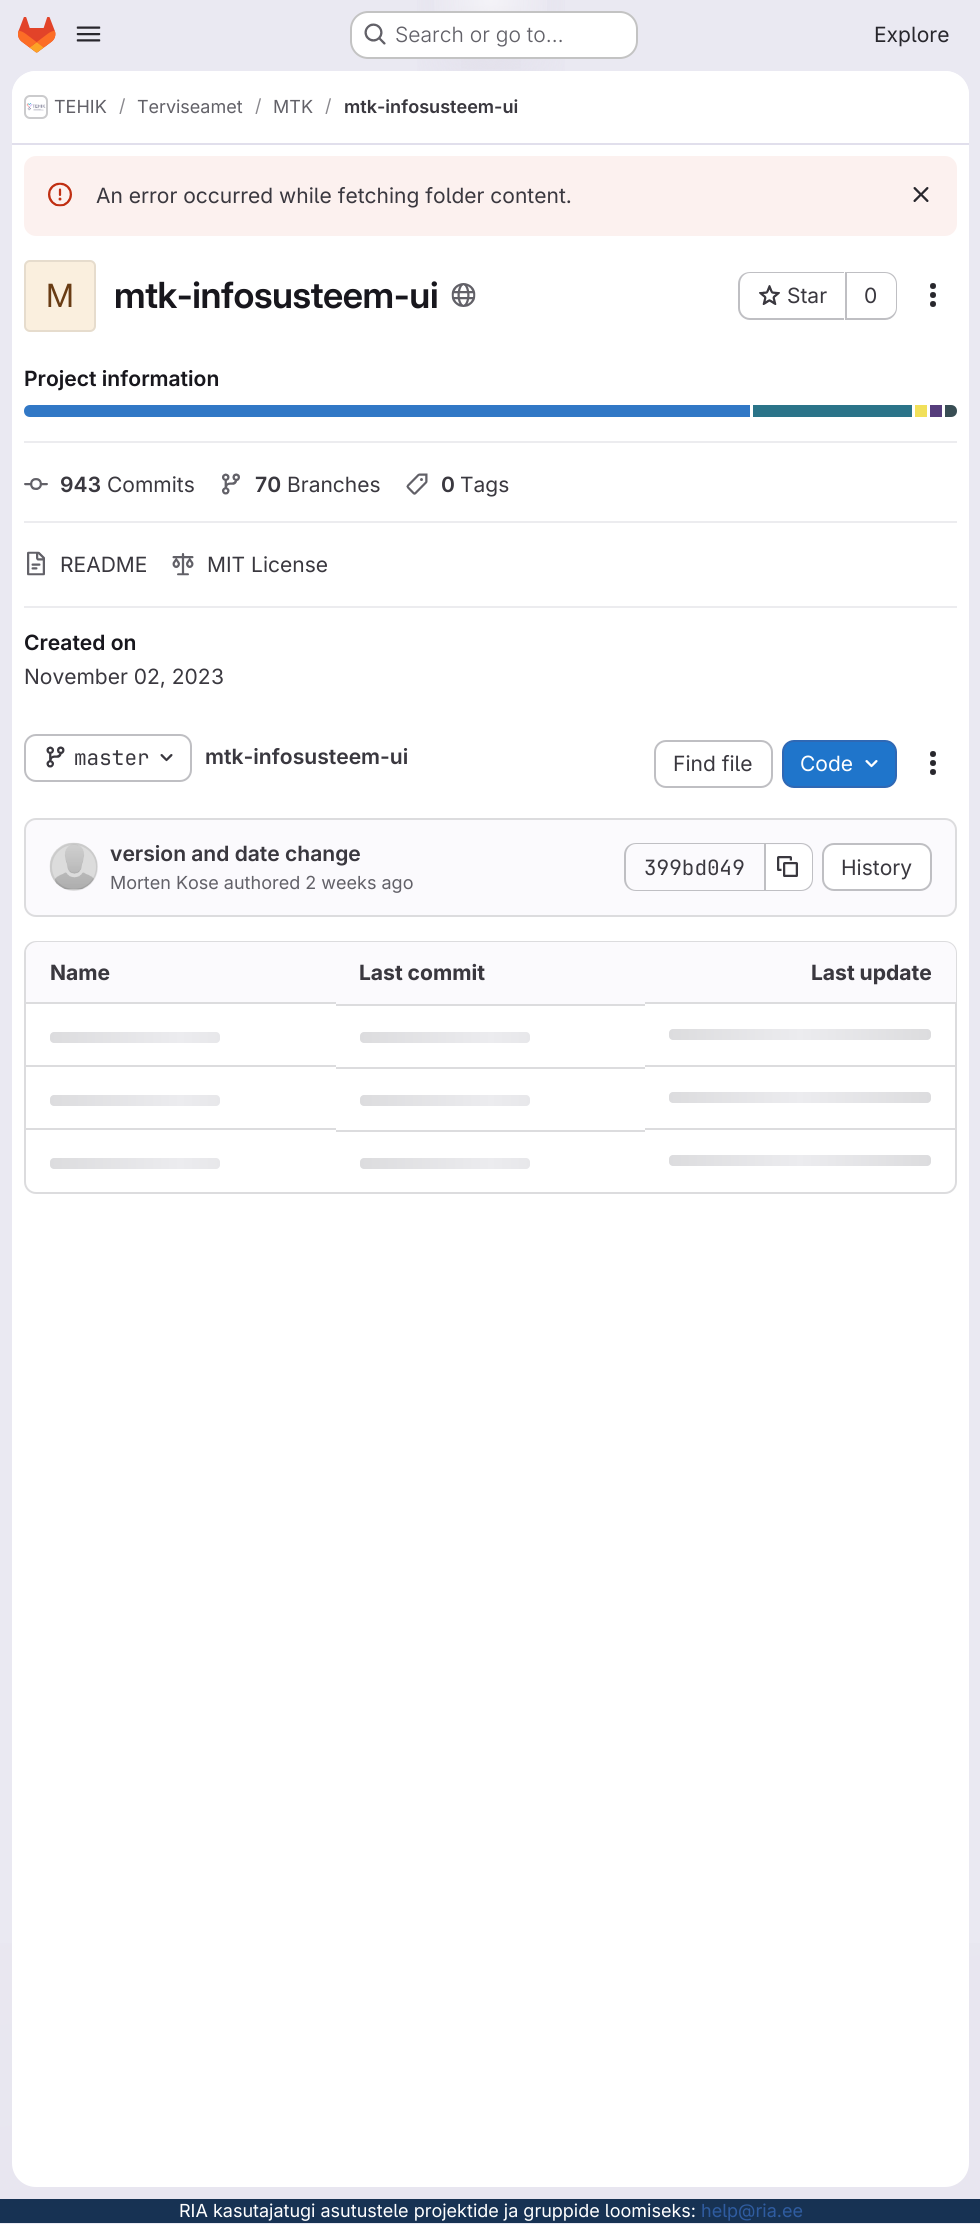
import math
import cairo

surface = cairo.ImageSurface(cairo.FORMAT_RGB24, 980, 2224)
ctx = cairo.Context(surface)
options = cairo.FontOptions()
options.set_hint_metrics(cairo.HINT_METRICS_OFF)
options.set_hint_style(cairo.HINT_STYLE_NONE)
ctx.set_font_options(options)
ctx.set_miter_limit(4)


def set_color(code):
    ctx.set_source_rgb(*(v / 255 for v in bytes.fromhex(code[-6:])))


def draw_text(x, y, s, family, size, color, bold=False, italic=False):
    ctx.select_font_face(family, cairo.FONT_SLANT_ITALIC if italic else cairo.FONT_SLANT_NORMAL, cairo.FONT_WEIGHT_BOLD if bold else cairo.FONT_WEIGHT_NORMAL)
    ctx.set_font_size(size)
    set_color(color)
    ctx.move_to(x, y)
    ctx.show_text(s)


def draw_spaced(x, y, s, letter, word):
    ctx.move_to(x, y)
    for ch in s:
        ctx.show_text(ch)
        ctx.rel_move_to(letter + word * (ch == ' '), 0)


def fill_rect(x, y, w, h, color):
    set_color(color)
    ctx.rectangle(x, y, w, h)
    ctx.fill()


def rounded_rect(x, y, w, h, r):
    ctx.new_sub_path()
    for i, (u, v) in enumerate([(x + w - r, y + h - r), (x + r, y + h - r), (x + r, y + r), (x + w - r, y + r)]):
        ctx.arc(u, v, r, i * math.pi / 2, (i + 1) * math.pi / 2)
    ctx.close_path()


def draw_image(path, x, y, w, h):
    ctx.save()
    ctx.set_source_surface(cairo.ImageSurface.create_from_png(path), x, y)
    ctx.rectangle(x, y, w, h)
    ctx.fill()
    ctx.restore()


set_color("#eae9f2")
ctx.paint()
gradient = cairo.LinearGradient(695, 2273, 286, -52)
gradient.add_color_stop_rgba(0, 0.91, 0.902, 0.941, 1)
gradient.add_color_stop_rgba(0.7, 0.918, 0.914, 0.949, 1)
ctx.set_source(gradient)
ctx.rectangle(0, 1943, 980, 256)
ctx.fill()
gradient = cairo.RadialGradient(0, 0, 0, 0, 0, 1)
gradient.set_matrix(cairo.Matrix(1 / 491, 0, 0, 1 / 2225, -1 * 491 / 491, -1 * -1.5 / 2225))
gradient.add_color_stop_rgba(0, 0.894, 0.886, 0.929, 1)
gradient.add_color_stop_rgba(0.21, 0.894, 0.886, 0.929, 0)
ctx.set_source(gradient)
ctx.rectangle(417, 0, 148, 71)
ctx.fill()
gradient = cairo.RadialGradient(0, 0, 0, 0, 0, 1)
gradient.set_matrix(cairo.Matrix(1 / 491, 0, 0, 1 / 2225, -1 * 491 / 491, -1 * -1.5 / 2225))
gradient.add_color_stop_rgba(0, 0.894, 0.886, 0.925, 1)
gradient.add_color_stop_rgba(0.15, 0.894, 0.886, 0.925, 0)
ctx.set_source(gradient)
ctx.rectangle(461, 6, 60, 63)
ctx.fill()
gradient = cairo.RadialGradient(491, -1.5, 0, 491, -1.5, 2278)
gradient.add_color_stop_rgba(0, 1, 1, 1, 0.6)
gradient.add_color_stop_rgba(0.03, 1, 1, 1, 0)
ctx.set_source(gradient)
ctx.rectangle(434, 0, 113, 57)
ctx.fill()
draw_image("assets/img1.png", 18, 17, 38, 36)
draw_image("assets/img2.png", 76, 26, 25, 16)
set_color("#ffffff")
rounded_rect(350, 11, 288, 48, 18)
ctx.fill()
rounded_rect(351, 12, 286, 46, 17)
ctx.set_source_rgba(0.02, 0.02, 0.024, 0.24)
ctx.stroke()
draw_image("assets/img3.png", 364, 23, 22, 22)
draw_text(395, 42, "Search or go to…", "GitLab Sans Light", 21, "#626168")
draw_text(874, 42, "Explore", "GitLab Sans", 21, "#28272d")
set_color("#ffffff")
rounded_rect(12, 71, 957, 2116, 24)
ctx.fill()
ctx.new_path()
ctx.move_to(36, 71)
ctx.line_to(945, 71)
ctx.curve_to(958.5, 71, 969, 81.5, 969, 95)
ctx.line_to(969, 144)
ctx.line_to(12, 144)
ctx.line_to(12, 95)
ctx.curve_to(12, 81.5, 22.5, 71, 36, 71)
ctx.close_path()
ctx.fill()
fill_rect(12, 143, 957, 2, "#e1dfec")
rounded_rect(25, 96, 22, 22, 5)
set_color("#dcdcde")
ctx.stroke()
draw_image("assets/img4.png", 26, 103, 20, 8)
rounded_rect(25, 96, 22, 22, 5)
ctx.set_source_rgba(0.02, 0.02, 0.024, 0.08)
ctx.stroke()
draw_text(54, 113, "TEHIK", "GitLab Sans", 18, "#626168")
draw_text(119, 112, "/", "GitLab Sans", 18, "#89888d")
draw_text(137, 113, "Terviseamet", "GitLab Sans", 18, "#626168")
draw_text(255, 112, "/", "GitLab Sans", 18, "#89888d")
draw_text(273, 113, "MTK", "GitLab Sans", 18, "#626168")
draw_text(325, 112, "/", "GitLab Sans", 18, "#89888d")
draw_text(344, 113, "mtk-infosusteem-ui", "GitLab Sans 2 SemiBold", 18, "#3a383f")
set_color("#fcf1ef")
rounded_rect(24, 156, 933, 80, 12)
ctx.fill()
draw_image("assets/img5.png", 48, 182, 24, 25)
draw_text(96, 203, "An error occurred while fetching folder content.", "GitLab Sans", 21, "#3a383f")
draw_image("assets/img6.png", 913, 187, 16, 15)
set_color("#faefde")
rounded_rect(24, 260, 72, 72, 6)
ctx.fill()
rounded_rect(25, 261, 70, 70, 5)
ctx.set_source_rgba(0.02, 0.02, 0.024, 0.08)
ctx.stroke()
draw_text(46, 307, "M", "GitLab Sans 2", 32, "#693c14")
ctx.select_font_face("GitLab Sans SemiBold")
ctx.set_font_size(36)
set_color("#18171d")
draw_spaced(114, 308, "mtk-infosusteem-ui", -0.4, 0)
draw_image("assets/img7.png", 451, 283, 25, 24)
set_color("#bfbfc3")
ctx.set_fill_rule(cairo.FILL_RULE_EVEN_ODD)
ctx.new_path()
ctx.move_to(750, 272)
ctx.line_to(844, 272)
ctx.line_to(844, 320)
ctx.line_to(750, 320)
ctx.curve_to(743, 320, 738, 314, 738, 308)
ctx.line_to(738, 284)
ctx.curve_to(738, 277, 743, 272, 750, 272)
ctx.close_path()
ctx.move_to(750, 273)
ctx.line_to(844, 273)
ctx.line_to(844, 318)
ctx.line_to(750, 318)
ctx.curve_to(744, 318, 740, 313, 740, 308)
ctx.line_to(740, 284)
ctx.curve_to(740, 278, 744, 273, 750, 273)
ctx.close_path()
ctx.fill()
draw_image("assets/img8.png", 759, 285, 21, 20)
draw_text(787, 303, "Star", "GitLab Sans", 21, "#3a383f")
set_color("#bfbfc3")
ctx.new_path()
ctx.move_to(846, 272)
ctx.line_to(885, 272)
ctx.curve_to(892, 272, 897, 277, 897, 284)
ctx.line_to(897, 308)
ctx.curve_to(897, 314, 892, 320, 885, 320)
ctx.line_to(846, 320)
ctx.close_path()
ctx.move_to(846, 273)
ctx.line_to(885, 273)
ctx.curve_to(891, 273, 896, 278, 896, 284)
ctx.line_to(896, 308)
ctx.curve_to(896, 313, 891, 318, 885, 318)
ctx.line_to(846, 318)
ctx.close_path()
ctx.fill()
fill_rect(845, 272, 2, 48, "#bfbfc3")
draw_text(864, 303, "0", "GitLab Sans", 21, "#3a383f")
draw_image("assets/img9.png", 930, 283, 6, 24)
fill_rect(24, 441, 933, 2, "#ececef")
draw_text(24, 386, "Project information", "GitLab Sans 2 SemiBold", 21, "#18171d")
set_color("#3178c6")
ctx.new_path()
ctx.move_to(30, 405)
ctx.line_to(750, 405)
ctx.line_to(750, 417)
ctx.line_to(30, 417)
ctx.curve_to(26.5, 417, 24, 414.5, 24, 411)
ctx.curve_to(24, 407.5, 26.5, 405, 30, 405)
ctx.close_path()
ctx.fill()
fill_rect(753, 405, 159, 12, "#2b7489")
fill_rect(915, 405, 12, 12, "#f1e05a")
fill_rect(930, 405, 12, 12, "#563d7c")
set_color("#384d54")
ctx.new_path()
ctx.move_to(945, 405)
ctx.line_to(951, 405)
ctx.curve_to(954.5, 405, 957, 407.5, 957, 411)
ctx.curve_to(957, 414.5, 954.5, 417, 951, 417)
ctx.line_to(945, 417)
ctx.close_path()
ctx.fill()
fill_rect(24, 521, 933, 2, "#ececef")
draw_image("assets/img10.png", 24, 478, 24, 12)
draw_text(60, 492, "943", "GitLab Sans 2 SemiBold", 21, "#3a383f")
draw_text(107, 492, "Commits", "GitLab Sans", 21, "#3a383f")
draw_image("assets/img11.png", 222, 473, 18, 22)
draw_text(255, 492, "70", "GitLab Sans 2 SemiBold", 21, "#3a383f")
draw_text(287, 492, "Branches", "GitLab Sans", 21, "#3a383f")
draw_image("assets/img12.png", 406, 473, 22, 22)
draw_text(441, 492, "0", "GitLab Sans 2 SemiBold", 21, "#3a383f")
draw_text(460, 492, "Tags", "GitLab Sans", 21, "#3a383f")
fill_rect(24, 606, 933, 2, "#ececef")
draw_image("assets/img13.png", 27, 551, 18, 25)
draw_text(60, 572, "README", "GitLab Sans", 21, "#3a383f")
draw_image("assets/img14.png", 172, 553, 22, 23)
draw_text(207, 572, "MIT License", "GitLab Sans", 21, "#3a383f")
draw_text(24, 650, "Created on", "GitLab Sans 2 SemiBold", 21, "#18171d")
draw_text(24, 684, "November 02, 2023", "GitLab Sans", 21, "#3a383f")
rounded_rect(25, 735, 166, 46, 11)
set_color("#bfbfc3")
ctx.stroke()
draw_image("assets/img15.png", 46, 746, 19, 22)
draw_text(74, 765, "master", "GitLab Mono", 21, "#3a383f")
draw_image("assets/img16.png", 160, 754, 13, 8)
draw_text(205, 764, "mtk-infosusteem-ui", "GitLab Sans 2 SemiBold", 21, "#3a383f")
rounded_rect(655, 741, 117, 46, 11)
set_color("#bfbfc3")
ctx.stroke()
draw_text(673, 771, "Find file", "GitLab Sans", 21, "#3a383f")
set_color("#1f75cb")
rounded_rect(783, 741, 113, 46, 11)
ctx.fill_preserve()
set_color("#2f68b4")
ctx.stroke()
draw_text(800, 771, "Code", "GitLab Sans", 21, "#ffffff")
draw_image("assets/img17.png", 865, 760, 13, 8)
draw_image("assets/img18.png", 930, 751, 6, 24)
set_color("#fbfafd")
rounded_rect(25, 819, 931, 97, 11)
ctx.fill_preserve()
set_color("#dcdcde")
ctx.stroke()
draw_image("assets/img19.png", 49, 842, 49, 49)
ctx.arc(74, 867, 23, 0, 2 * math.pi)
ctx.set_source_rgba(0.02, 0.02, 0.024, 0.08)
ctx.stroke()
draw_text(110, 861, "version and date change", "GitLab Sans 2 SemiBold", 21, "#3a383f")
draw_text(110, 889, "Morten Kose authored 2 weeks ago", "GitLab Sans", 18, "#626168")
set_color("#bfbfc3")
ctx.new_path()
ctx.move_to(636, 843)
ctx.line_to(764, 843)
ctx.line_to(764, 891)
ctx.line_to(636, 891)
ctx.curve_to(629, 891, 624, 886, 624, 879)
ctx.line_to(624, 855)
ctx.curve_to(624, 848, 629, 843, 636, 843)
ctx.close_path()
ctx.move_to(636, 844)
ctx.line_to(764, 844)
ctx.line_to(764, 890)
ctx.line_to(636, 890)
ctx.curve_to(630, 890, 626, 885, 626, 879)
ctx.line_to(626, 855)
ctx.curve_to(626, 849, 630, 844, 636, 844)
ctx.close_path()
ctx.fill()
draw_text(644, 875, "399bd049", "GitLab Mono", 21, "#3a383f")
set_color("#ffffff")
ctx.new_path()
ctx.move_to(765, 845)
ctx.line_to(801, 845)
ctx.curve_to(807, 845, 812, 850, 812, 856)
ctx.line_to(812, 879)
ctx.curve_to(812, 885, 807, 890, 801, 890)
ctx.line_to(765, 890)
ctx.close_path()
ctx.fill()
set_color("#bfbfc3")
ctx.new_path()
ctx.move_to(765, 843)
ctx.line_to(801, 843)
ctx.curve_to(808, 843, 813, 848, 813, 855)
ctx.line_to(813, 879)
ctx.curve_to(813, 886, 808, 891, 801, 891)
ctx.line_to(765, 891)
ctx.close_path()
ctx.move_to(765, 844)
ctx.line_to(801, 844)
ctx.curve_to(807, 844, 812, 849, 812, 855)
ctx.line_to(812, 879)
ctx.curve_to(812, 885, 807, 890, 801, 890)
ctx.line_to(765, 890)
ctx.close_path()
ctx.fill()
fill_rect(764, 843, 2, 48, "#bfbfc3")
draw_image("assets/img20.png", 777, 856, 21, 21)
set_color("#ffffff")
rounded_rect(823, 844, 108, 46, 11)
ctx.fill_preserve()
set_color("#bfbfc3")
ctx.stroke()
draw_text(841, 875, "History", "GitLab Sans", 21, "#3a383f")
rounded_rect(25, 942, 931, 251, 11)
set_color("#dcdcde")
ctx.stroke()
set_color("#fbfafd")
ctx.new_path()
ctx.move_to(37, 942)
ctx.line_to(336, 942)
ctx.line_to(336, 1004)
ctx.line_to(26, 1004)
ctx.line_to(26, 953)
ctx.curve_to(26, 947, 31, 942, 37, 942)
ctx.close_path()
ctx.fill()
draw_text(50, 980, "Name", "GitLab Sans", 21, "#3a383f", bold=True)
fill_rect(336, 942, 309, 62, "#fbfafd")
draw_text(359, 980, "Last commit", "GitLab Sans", 21, "#3a383f", bold=True)
set_color("#fbfafd")
ctx.new_path()
ctx.move_to(645, 942)
ctx.line_to(945, 942)
ctx.curve_to(951, 942, 956, 947, 956, 953)
ctx.line_to(956, 1004)
ctx.line_to(645, 1004)
ctx.close_path()
ctx.fill()
draw_text(811, 980, "Last update", "GitLab Sans", 21, "#3a383f", bold=True)
fill_rect(26, 1002, 310, 2, "#dcdcde")
gradient = cairo.LinearGradient(50, 1032, 311, 1032)
gradient.add_color_stop_rgba(0, 0.863, 0.863, 0.871, 1)
gradient.add_color_stop_rgba(0.5, 0.925, 0.925, 0.937, 1)
gradient.add_color_stop_rgba(1, 0.863, 0.863, 0.871, 1)
ctx.set_source(gradient)
rounded_rect(50, 1032, 170, 11, 4)
ctx.fill()
fill_rect(336, 1004, 309, 2, "#dcdcde")
gradient = cairo.LinearGradient(360, 1032, 622, 1032)
gradient.add_color_stop_rgba(0, 0.863, 0.863, 0.871, 1)
gradient.add_color_stop_rgba(0.5, 0.925, 0.925, 0.937, 1)
gradient.add_color_stop_rgba(1, 0.863, 0.863, 0.871, 1)
ctx.set_source(gradient)
rounded_rect(360, 1032, 170, 11, 4)
ctx.fill()
fill_rect(645, 1002, 311, 2, "#dcdcde")
gradient = cairo.LinearGradient(669, 1029, 931, 1029)
gradient.add_color_stop_rgba(0, 0.863, 0.863, 0.871, 1)
gradient.add_color_stop_rgba(0.5, 0.925, 0.925, 0.937, 1)
gradient.add_color_stop_rgba(1, 0.863, 0.863, 0.871, 1)
ctx.set_source(gradient)
rounded_rect(669, 1029, 262, 11, 4)
ctx.fill()
fill_rect(26, 1065, 310, 2, "#dcdcde")
gradient = cairo.LinearGradient(50, 1095, 311, 1095)
gradient.add_color_stop_rgba(0, 0.863, 0.863, 0.871, 1)
gradient.add_color_stop_rgba(0.5, 0.925, 0.925, 0.937, 1)
gradient.add_color_stop_rgba(1, 0.863, 0.863, 0.871, 1)
ctx.set_source(gradient)
rounded_rect(50, 1095, 170, 11, 4)
ctx.fill()
fill_rect(336, 1067, 309, 2, "#dcdcde")
gradient = cairo.LinearGradient(360, 1095, 622, 1095)
gradient.add_color_stop_rgba(0, 0.863, 0.863, 0.871, 1)
gradient.add_color_stop_rgba(0.5, 0.925, 0.925, 0.937, 1)
gradient.add_color_stop_rgba(1, 0.863, 0.863, 0.871, 1)
ctx.set_source(gradient)
rounded_rect(360, 1095, 170, 11, 4)
ctx.fill()
fill_rect(645, 1065, 311, 2, "#dcdcde")
gradient = cairo.LinearGradient(669, 1092, 931, 1092)
gradient.add_color_stop_rgba(0, 0.863, 0.863, 0.871, 1)
gradient.add_color_stop_rgba(0.5, 0.925, 0.925, 0.937, 1)
gradient.add_color_stop_rgba(1, 0.863, 0.863, 0.871, 1)
ctx.set_source(gradient)
rounded_rect(669, 1092, 262, 11, 4)
ctx.fill()
fill_rect(26, 1128, 310, 2, "#dcdcde")
gradient = cairo.LinearGradient(50, 1158, 311, 1158)
gradient.add_color_stop_rgba(0, 0.863, 0.863, 0.871, 1)
gradient.add_color_stop_rgba(0.5, 0.925, 0.925, 0.937, 1)
gradient.add_color_stop_rgba(1, 0.863, 0.863, 0.871, 1)
ctx.set_source(gradient)
rounded_rect(50, 1158, 170, 11, 4)
ctx.fill()
fill_rect(336, 1130, 309, 2, "#dcdcde")
gradient = cairo.LinearGradient(360, 1158, 622, 1158)
gradient.add_color_stop_rgba(0, 0.863, 0.863, 0.871, 1)
gradient.add_color_stop_rgba(0.5, 0.925, 0.925, 0.937, 1)
gradient.add_color_stop_rgba(1, 0.863, 0.863, 0.871, 1)
ctx.set_source(gradient)
rounded_rect(360, 1158, 170, 11, 4)
ctx.fill()
fill_rect(645, 1128, 311, 2, "#dcdcde")
gradient = cairo.LinearGradient(669, 1155, 931, 1155)
gradient.add_color_stop_rgba(0, 0.863, 0.863, 0.871, 1)
gradient.add_color_stop_rgba(0.5, 0.925, 0.925, 0.937, 1)
gradient.add_color_stop_rgba(1, 0.863, 0.863, 0.871, 1)
ctx.set_source(gradient)
rounded_rect(669, 1155, 262, 11, 4)
ctx.fill()
fill_rect(0, 2199, 980, 24, "#173253")
draw_text(179, 2217, "RIA kasutajatugi asutustele projektide ja gruppide loomiseks:", "GitLab Sans", 18, "#ffffff")
draw_text(701, 2217, "help@ria.ee", "GitLab Sans", 18, "#2f5ca0")
surface.write_to_png("output.png")
